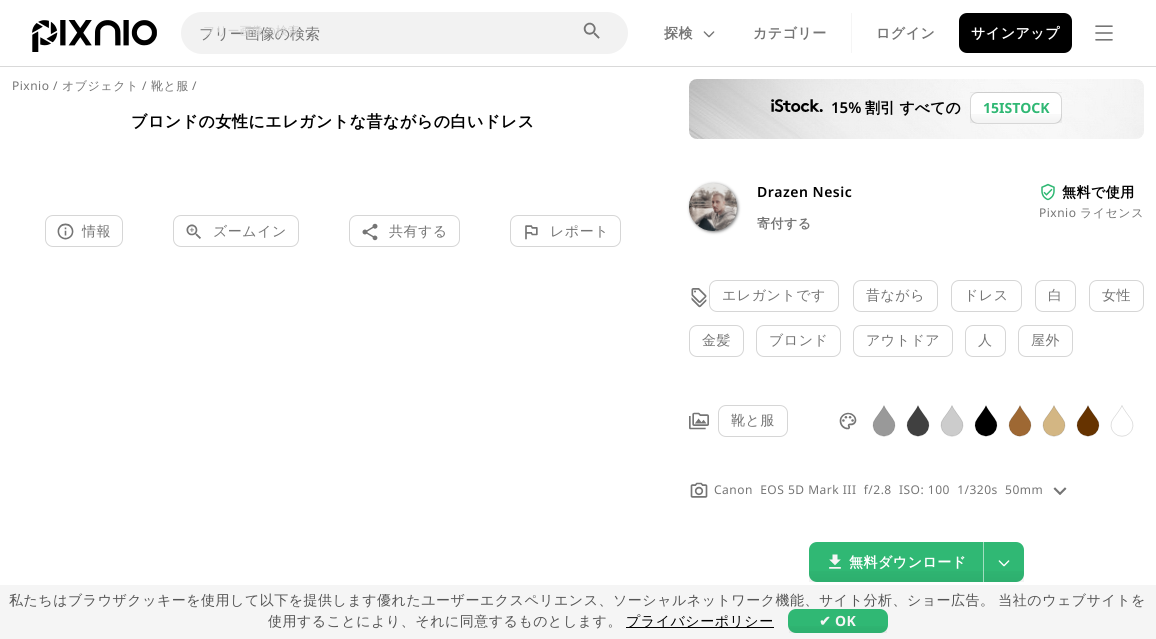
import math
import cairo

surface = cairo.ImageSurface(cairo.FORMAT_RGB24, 1156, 639)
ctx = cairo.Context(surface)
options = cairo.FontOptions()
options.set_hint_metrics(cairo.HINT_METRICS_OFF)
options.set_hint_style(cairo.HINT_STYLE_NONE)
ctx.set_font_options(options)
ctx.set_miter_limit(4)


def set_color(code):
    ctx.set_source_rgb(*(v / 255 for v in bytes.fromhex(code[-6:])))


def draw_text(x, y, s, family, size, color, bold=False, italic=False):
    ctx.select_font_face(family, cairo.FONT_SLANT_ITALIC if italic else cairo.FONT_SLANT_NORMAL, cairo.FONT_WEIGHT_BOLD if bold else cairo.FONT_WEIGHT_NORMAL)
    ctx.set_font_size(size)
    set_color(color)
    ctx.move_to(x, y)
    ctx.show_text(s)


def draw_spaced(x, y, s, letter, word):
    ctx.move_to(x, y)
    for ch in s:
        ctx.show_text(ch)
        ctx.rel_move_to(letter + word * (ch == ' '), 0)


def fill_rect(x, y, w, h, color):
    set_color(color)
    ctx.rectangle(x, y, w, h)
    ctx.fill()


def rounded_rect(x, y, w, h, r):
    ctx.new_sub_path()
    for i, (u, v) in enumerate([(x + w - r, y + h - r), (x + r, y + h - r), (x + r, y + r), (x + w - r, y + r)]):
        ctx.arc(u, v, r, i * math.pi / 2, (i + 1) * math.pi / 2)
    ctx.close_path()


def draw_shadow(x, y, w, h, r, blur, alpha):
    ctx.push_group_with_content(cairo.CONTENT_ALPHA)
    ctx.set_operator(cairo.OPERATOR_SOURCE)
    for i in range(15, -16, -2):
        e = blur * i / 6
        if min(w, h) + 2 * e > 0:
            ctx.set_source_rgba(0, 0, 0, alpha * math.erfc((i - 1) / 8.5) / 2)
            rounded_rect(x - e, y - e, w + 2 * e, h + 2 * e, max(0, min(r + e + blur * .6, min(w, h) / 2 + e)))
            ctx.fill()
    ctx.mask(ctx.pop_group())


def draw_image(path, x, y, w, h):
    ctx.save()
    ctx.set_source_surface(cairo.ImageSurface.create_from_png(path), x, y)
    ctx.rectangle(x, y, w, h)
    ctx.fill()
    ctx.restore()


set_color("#ffffff")
ctx.paint()
fill_rect(0, 66, 1156, 1, "#d9d9d9")
draw_image("assets/img1.png", 32, 20, 125, 32)
set_color("#f2f2f2")
rounded_rect(181, 12, 447, 42, 21)
ctx.fill()
draw_text(199, 39, "フリー画像の検索", "WenQuanYi Zen Hei Medium", 15, "#757575")
draw_text(203, 35, "フリー画像の検索", "WenQuanYi Zen Hei Medium", 12, "#d4d4d4")
draw_image("assets/img2.png", 583, 22, 17, 17)
ctx.select_font_face("WenQuanYi Zen Hei", cairo.FONT_SLANT_NORMAL, cairo.FONT_WEIGHT_BOLD)
ctx.set_font_size(14)
set_color("#757575")
draw_spaced(664, 38, "探検", 0.5, 0)
draw_image("assets/img3.png", 703, 31, 12, 7)
draw_spaced(753, 38, "カテゴリー", 0.5, 0)
fill_rect(851, 13, 1, 40, "#f5f5f5")
set_color("#757575")
draw_spaced(876, 38, "ログイン", 0.5, 0)
set_color("#000000")
rounded_rect(959, 13, 113, 40, 8)
ctx.fill()
set_color("#ffffff")
draw_spaced(971, 38, "サインアップ", 0.5, 0)
draw_image("assets/img4.png", 1095, 25, 18, 16)
ctx.select_font_face("Noto Sans")
ctx.set_font_size(12)
set_color("#757575")
draw_spaced(12, 90, "Pixnio /", 0.5, 0)
ctx.select_font_face("WenQuanYi Zen Hei Medium")
draw_spaced(62, 90, "オブジェクト", 0.5, 0)
ctx.select_font_face("Noto Sans")
draw_spaced(142, 90, "/", 0.5, 0)
ctx.select_font_face("WenQuanYi Zen Hei Medium")
draw_spaced(151, 90, "靴と服", 0.5, 0)
ctx.select_font_face("Noto Sans")
draw_spaced(192, 90, "/", 0.5, 0)
ctx.select_font_face("WenQuanYi Zen Hei", cairo.FONT_SLANT_NORMAL, cairo.FONT_WEIGHT_BOLD)
ctx.set_font_size(16)
set_color("#000000")
draw_spaced(131, 127, "ブロンドの女性にエレガントな昔ながらの白いドレス", 0.5, 0)
rounded_rect(45.5, 215.5, 77, 31, 7.5)
set_color("#d6d6d6")
ctx.set_line_width(1)
ctx.stroke()
draw_image("assets/img5.png", 57, 223, 17, 17)
ctx.select_font_face("WenQuanYi Zen Hei Medium")
ctx.set_font_size(14)
set_color("#757575")
draw_spaced(82, 236, "情報", 0.5, 0)
rounded_rect(173.5, 215.5, 125, 31, 7.5)
set_color("#d6d6d6")
ctx.stroke()
draw_image("assets/img6.png", 186, 224, 15, 15)
set_color("#757575")
draw_spaced(213, 236, "ズームイン", 0.5, 0)
rounded_rect(349.5, 215.5, 110, 31, 7.5)
set_color("#d6d6d6")
ctx.stroke()
draw_image("assets/img7.png", 362, 223, 16, 18)
set_color("#757575")
draw_spaced(389, 236, "共有する", 0.5, 0)
rounded_rect(510.5, 215.5, 110, 31, 7.5)
set_color("#d6d6d6")
ctx.stroke()
draw_image("assets/img8.png", 525, 225, 13, 15)
set_color("#757575")
draw_spaced(550, 236, "レポート", 0.5, 0)
draw_image("assets/img9.png", 689, 79, 455, 60)
draw_image("assets/img10.png", 771, 99, 52, 13)
draw_text(831, 113, "15%", "Noto Sans SemiBold", 15, "#000000")
draw_text(865, 113, "割引 すべての", "WenQuanYi Zen Hei", 15, "#000000", bold=True)
set_color("#ffffff")
rounded_rect(970, 92, 92, 32, 8)
ctx.fill()
gradient = cairo.LinearGradient(1016, 63, 1016, 93)
gradient.add_color_stop_rgba(0.5, 0, 0, 0, 0)
gradient.add_color_stop_rgba(1, 0, 0, 0, 0.05)
ctx.set_source(gradient)
ctx.rectangle(970, 92, 92, 1)
ctx.fill()
gradient = cairo.LinearGradient(1016, 93, 1016, 123)
gradient.add_color_stop_rgba(0.5, 0, 0, 0, 0)
gradient.add_color_stop_rgba(1, 0, 0, 0, 0.05)
ctx.set_source(gradient)
ctx.rectangle(970, 114, 92, 9)
ctx.fill()
rounded_rect(970.5, 92.5, 91, 31, 7.5)
ctx.set_source_rgba(0, 0, 0, 0.16)
ctx.stroke()
draw_text(983, 113, "15ISTOCK", "Noto Sans", 14, "#30b874", bold=True)
set_color("#777777")
draw_shadow(690, 184, 48, 48, 24, 1.5, 1)
draw_image("assets/img11.png", 689, 183, 48, 48)
ctx.select_font_face("Noto Sans SemiBold")
set_color("#000000")
draw_spaced(757, 197, "Drazen Nesic", 0.5, 0)
ctx.select_font_face("WenQuanYi Zen Hei", cairo.FONT_SLANT_NORMAL, cairo.FONT_WEIGHT_BOLD)
ctx.set_font_size(13)
set_color("#757575")
draw_spaced(757, 228, "寄付する", 0.5, 0)
draw_image("assets/img12.png", 1041, 183, 14, 18)
ctx.set_font_size(14)
set_color("#000000")
draw_spaced(1062, 197, "無料で使用", 0.5, 0)
ctx.select_font_face("Noto Sans")
ctx.set_font_size(12)
set_color("#757575")
draw_spaced(1039, 217, "Pixnio", 0.5, 0)
ctx.select_font_face("WenQuanYi Zen Hei Medium")
draw_spaced(1080, 217, "ライセンス", 0.5, 0)
draw_image("assets/img13.png", 691, 288, 16, 20)
rounded_rect(709.5, 280.5, 129, 31, 7.5)
set_color("#d6d6d6")
ctx.stroke()
ctx.set_font_size(14)
set_color("#757575")
draw_spaced(722, 300, "エレガントです", 0.5, 0)
rounded_rect(853.5, 280.5, 84, 31, 7.5)
set_color("#d6d6d6")
ctx.stroke()
set_color("#757575")
draw_spaced(866, 300, "昔ながら", 0.5, 0)
rounded_rect(951.5, 280.5, 70, 31, 7.5)
set_color("#d6d6d6")
ctx.stroke()
set_color("#757575")
draw_spaced(964, 300, "ドレス", 0.5, 0)
rounded_rect(1035.5, 280.5, 40, 31, 7.5)
set_color("#d6d6d6")
ctx.stroke()
set_color("#757575")
draw_spaced(1048, 300, "白", 0.5, 0)
rounded_rect(1089.5, 280.5, 54, 31, 7.5)
set_color("#d6d6d6")
ctx.stroke()
set_color("#757575")
draw_spaced(1102, 300, "女性", 0.5, 0)
rounded_rect(689.5, 325.5, 54, 31, 7.5)
set_color("#d6d6d6")
ctx.stroke()
set_color("#757575")
draw_spaced(702, 345, "金髪", 0.5, 0)
rounded_rect(756.5, 325.5, 84, 31, 7.5)
set_color("#d6d6d6")
ctx.stroke()
set_color("#757575")
draw_spaced(769, 345, "ブロンド", 0.5, 0)
rounded_rect(853.5, 325.5, 99, 31, 7.5)
set_color("#d6d6d6")
ctx.stroke()
set_color("#757575")
draw_spaced(866, 345, "アウトドア", 0.5, 0)
rounded_rect(965.5, 325.5, 40, 31, 7.5)
set_color("#d6d6d6")
ctx.stroke()
set_color("#757575")
draw_spaced(978, 345, "人", 0.5, 0)
rounded_rect(1018.5, 325.5, 54, 31, 7.5)
set_color("#d6d6d6")
ctx.stroke()
set_color("#757575")
draw_spaced(1031, 345, "屋外", 0.5, 0)
draw_image("assets/img14.png", 689, 412, 20, 18)
rounded_rect(718.5, 405.5, 69, 31, 7.5)
set_color("#d6d6d6")
ctx.stroke()
set_color("#757575")
draw_spaced(731, 425, "靴と服", 0.5, 0)
draw_image("assets/img15.png", 839, 412, 18, 18)
draw_image("assets/img16.png", 872, 405, 24, 32)
draw_image("assets/img17.png", 906, 405, 24, 32)
draw_image("assets/img18.png", 940, 405, 24, 32)
draw_image("assets/img19.png", 974, 405, 24, 32)
draw_image("assets/img20.png", 1008, 405, 24, 32)
draw_image("assets/img21.png", 1042, 405, 24, 32)
draw_image("assets/img22.png", 1076, 405, 24, 32)
draw_image("assets/img23.png", 1110, 405, 24, 32)
draw_image("assets/img24.png", 690, 482, 18, 16)
ctx.select_font_face("Noto Sans")
ctx.set_font_size(12)
draw_spaced(714, 494, "Canon  EOS 5D Mark III  f/2.8  ISO: 100  1/320s  50mm", 0.5, 0)
draw_image("assets/img25.png", 1053, 487, 14, 8)
set_color("#30b874")
ctx.new_path()
ctx.move_to(817, 542)
ctx.line_to(984, 542)
ctx.line_to(984, 582)
ctx.line_to(817, 582)
ctx.curve_to(812.5, 582, 809, 578.5, 809, 574)
ctx.line_to(809, 550)
ctx.curve_to(809, 545.5, 812.5, 542, 817, 542)
ctx.close_path()
ctx.fill()
gradient = cairo.LinearGradient(896, 542, 896, 582)
gradient.add_color_stop_rgba(0.5, 0, 0, 0, 0)
gradient.add_color_stop_rgba(1, 0, 0, 0, 0.05)
ctx.set_source(gradient)
ctx.rectangle(809, 571, 175, 11)
ctx.fill()
ctx.set_source_rgba(1, 1, 1, 0.55)
ctx.rectangle(983, 542, 1, 40)
ctx.fill()
draw_image("assets/img26.png", 829, 554, 12, 15)
ctx.select_font_face("WenQuanYi Zen Hei", cairo.FONT_SLANT_NORMAL, cairo.FONT_WEIGHT_BOLD)
ctx.set_font_size(14)
set_color("#ffffff")
draw_spaced(849, 567, "無料ダウンロード", 0.5, 0)
set_color("#30b874")
ctx.new_path()
ctx.move_to(984, 542)
ctx.line_to(1016, 542)
ctx.curve_to(1020.5, 542, 1024, 545.5, 1024, 550)
ctx.line_to(1024, 574)
ctx.curve_to(1024, 578.5, 1020.5, 582, 1016, 582)
ctx.line_to(984, 582)
ctx.close_path()
ctx.fill()
gradient = cairo.LinearGradient(1004, 542, 1004, 582)
gradient.add_color_stop_rgba(0.5, 0, 0, 0, 0)
gradient.add_color_stop_rgba(1, 0, 0, 0, 0.05)
ctx.set_source(gradient)
ctx.rectangle(984, 571, 40, 11)
ctx.fill()
draw_image("assets/img27.png", 998, 560, 12, 7)
fill_rect(0, 585, 1156, 54, "#f5f5f5")
ctx.select_font_face("WenQuanYi Zen Hei Medium")
set_color("#555555")
draw_spaced(9, 605, "私たちはブラウザクッキーを使用して以下を提供します優れたユーザーエクスペリエンス、ソーシャルネットワーク機能、サイト分析、ショー広告。 当社のウェブサイトを", 0.5, -1)
draw_spaced(268, 626, "使用することにより、それに同意するものとします。", 0.5, 0)
fill_rect(626, 627, 148, 1, "#000000")
draw_spaced(626, 626, "プライバシーポリシー", 0.5, 0)
set_color("#30b874")
rounded_rect(788, 609, 100, 24, 8)
ctx.fill()
gradient = cairo.LinearGradient(838, 609, 838, 633)
gradient.add_color_stop_rgba(0.5, 0, 0, 0, 0)
gradient.add_color_stop_rgba(1, 0, 0, 0, 0.05)
ctx.set_source(gradient)
ctx.rectangle(789, 626, 98, 7)
ctx.fill()
ctx.select_font_face("DejaVu Sans", cairo.FONT_SLANT_NORMAL, cairo.FONT_WEIGHT_BOLD)
set_color("#f5f5f5")
draw_spaced(819, 626, "✔", 0.5, 0)
ctx.select_font_face("Noto Sans", cairo.FONT_SLANT_NORMAL, cairo.FONT_WEIGHT_BOLD)
draw_spaced(835, 626, "OK", 0.5, 0)
surface.write_to_png("output.png")
